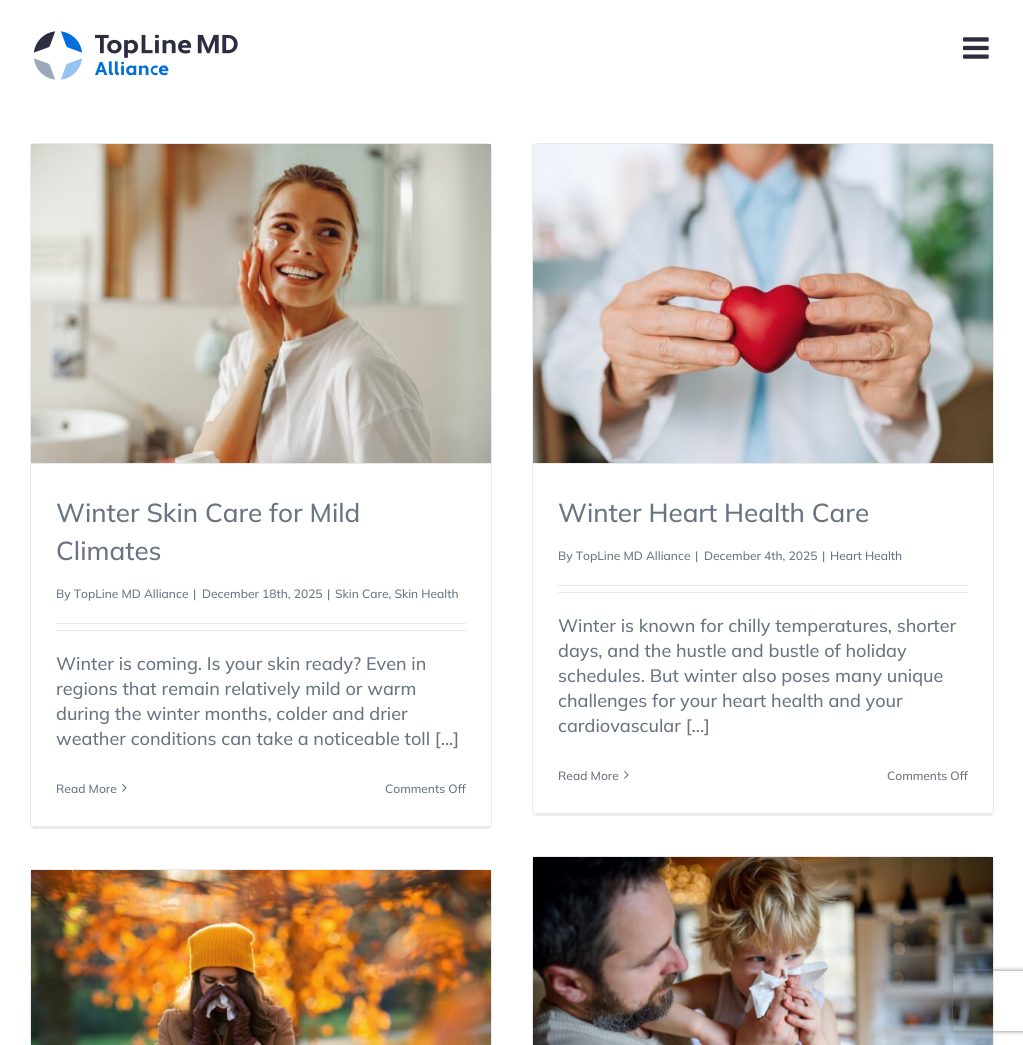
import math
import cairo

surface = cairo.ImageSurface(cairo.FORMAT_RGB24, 1023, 1045)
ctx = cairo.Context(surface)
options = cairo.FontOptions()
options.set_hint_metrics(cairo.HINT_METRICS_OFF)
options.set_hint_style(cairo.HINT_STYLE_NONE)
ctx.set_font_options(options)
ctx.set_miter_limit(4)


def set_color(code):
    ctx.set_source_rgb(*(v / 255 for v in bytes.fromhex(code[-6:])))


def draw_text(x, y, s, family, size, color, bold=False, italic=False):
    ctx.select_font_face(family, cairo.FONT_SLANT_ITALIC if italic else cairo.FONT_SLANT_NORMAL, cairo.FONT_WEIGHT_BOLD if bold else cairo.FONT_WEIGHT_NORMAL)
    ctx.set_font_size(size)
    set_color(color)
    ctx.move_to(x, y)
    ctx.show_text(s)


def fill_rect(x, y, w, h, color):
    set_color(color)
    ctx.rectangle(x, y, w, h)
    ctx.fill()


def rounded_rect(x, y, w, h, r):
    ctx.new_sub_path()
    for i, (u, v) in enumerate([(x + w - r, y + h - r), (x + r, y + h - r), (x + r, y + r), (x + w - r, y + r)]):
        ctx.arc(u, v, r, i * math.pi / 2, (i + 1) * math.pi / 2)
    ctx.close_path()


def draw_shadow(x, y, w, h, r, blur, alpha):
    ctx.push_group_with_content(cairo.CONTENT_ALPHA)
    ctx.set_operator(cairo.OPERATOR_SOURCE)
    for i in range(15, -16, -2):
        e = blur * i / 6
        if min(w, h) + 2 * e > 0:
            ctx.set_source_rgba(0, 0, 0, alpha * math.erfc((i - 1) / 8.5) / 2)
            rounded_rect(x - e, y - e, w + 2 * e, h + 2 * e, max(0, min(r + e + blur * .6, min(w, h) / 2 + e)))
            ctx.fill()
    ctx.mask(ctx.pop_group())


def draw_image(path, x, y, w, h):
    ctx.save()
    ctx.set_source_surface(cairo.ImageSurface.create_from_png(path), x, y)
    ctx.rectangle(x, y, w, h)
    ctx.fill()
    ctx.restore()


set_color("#ffffff")
ctx.paint()
draw_image("assets/img1.png", 33, 31, 205, 49)
draw_image("assets/img2.png", 963, 37, 26, 22)
rounded_rect(30.5, 143.5, 461, 685, 4.5)
set_color("#ebeaea")
ctx.set_line_width(1)
ctx.stroke()
fill_rect(33, 826, 457, 2, "#ebeaea")
fill_rect(31, 463, 460, 1, "#ebeaea")
draw_image("assets/img3.png", 31, 144, 460, 319)
draw_text(56, 522, "Winter Skin Care for Mild", "Mulish Medium", 26, "#697382")
draw_text(56, 560, "Climates", "Mulish Medium", 26, "#697382")
draw_text(56, 598, "By TopLine MD Alliance", "Mulish Medium", 12, "#697382")
draw_text(193, 598, "|", "Mulish Medium", 12, "#697382")
draw_text(202, 598, "December 18th, 2025", "Mulish Medium", 12, "#697382")
draw_text(327, 598, "|", "Mulish Medium", 12, "#697382")
draw_text(335, 598, "Skin Care, Skin Health", "Mulish Medium", 12, "#697382")
fill_rect(56, 623, 410, 1, "#ebeaea")
fill_rect(56, 630, 410, 1, "#ebeaea")
draw_text(56, 670, "Winter is coming. Is your skin ready? Even in", "Mulish Medium", 18, "#697382")
draw_text(56, 695, "regions that remain relatively mild or warm", "Mulish Medium", 18, "#697382")
draw_text(56, 720, "during the winter months, colder and drier", "Mulish Medium", 18, "#697382")
draw_text(56, 745, "weather conditions can take a noticeable toll [...]", "Mulish Medium", 18, "#697382")
draw_text(56, 793, "Read More", "Mulish Medium", 12, "#697382")
draw_image("assets/img4.png", 122, 784, 5, 8)
draw_text(385, 793, "Comments Off", "Mulish Medium", 12, "#697382")
rounded_rect(532.5, 143.5, 461, 672, 4.5)
set_color("#ebeaea")
ctx.stroke()
fill_rect(535, 813, 457, 2, "#ebeaea")
fill_rect(533, 463, 460, 1, "#ebeaea")
draw_image("assets/img5.png", 533, 144, 460, 319)
draw_text(558, 522, "Winter Heart Health Care", "Mulish Medium", 26, "#697382")
draw_text(558, 560, "By TopLine MD Alliance", "Mulish Medium", 12, "#697382")
draw_text(695, 560, "|", "Mulish Medium", 12, "#697382")
draw_text(704, 560, "December 4th, 2025", "Mulish Medium", 12, "#697382")
draw_text(822, 560, "|", "Mulish Medium", 12, "#697382")
draw_text(830, 560, "Heart Health", "Mulish Medium", 12, "#697382")
fill_rect(558, 585, 410, 1, "#ebeaea")
fill_rect(558, 592, 410, 1, "#ebeaea")
draw_text(558, 632, "Winter is known for chilly temperatures, shorter", "Mulish Medium", 18, "#697382")
draw_text(558, 657, "days, and the hustle and bustle of holiday", "Mulish Medium", 18, "#697382")
draw_text(558, 682, "schedules. But winter also poses many unique", "Mulish Medium", 18, "#697382")
draw_text(558, 707, "challenges for your heart health and your", "Mulish Medium", 18, "#697382")
draw_text(558, 732, "cardiovascular [...]", "Mulish Medium", 18, "#697382")
draw_text(558, 780, "Read More", "Mulish Medium", 12, "#697382")
draw_image("assets/img4.png", 624, 771, 5, 8)
draw_text(887, 780, "Comments Off", "Mulish Medium", 12, "#697382")
rounded_rect(30.5, 869.5, 461, 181, 4.5)
set_color("#ebeaea")
ctx.stroke()
draw_image("assets/img6.png", 31, 870, 460, 175)
rounded_rect(532.5, 856.5, 461, 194, 4.5)
ctx.stroke()
draw_image("assets/img7.png", 533, 857, 460, 188)
ctx.save()
ctx.set_fill_rule(cairo.FILL_RULE_EVEN_ODD)
ctx.new_path()
ctx.move_to(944, 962)
ctx.line_to(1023, 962)
ctx.line_to(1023, 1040)
ctx.line_to(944, 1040)
ctx.close_path()
ctx.move_to(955, 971)
ctx.line_to(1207, 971)
ctx.curve_to(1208, 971, 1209, 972, 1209, 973)
ctx.line_to(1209, 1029)
ctx.curve_to(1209, 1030, 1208, 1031, 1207, 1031)
ctx.line_to(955, 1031)
ctx.curve_to(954, 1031, 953, 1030, 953, 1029)
ctx.line_to(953, 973)
ctx.curve_to(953, 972, 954, 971, 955, 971)
ctx.close_path()
ctx.clip()
set_color("#808080")
draw_shadow(953, 971, 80, 60, 2, 2.5, 1)
ctx.restore()
surface.write_to_png("output.png")
